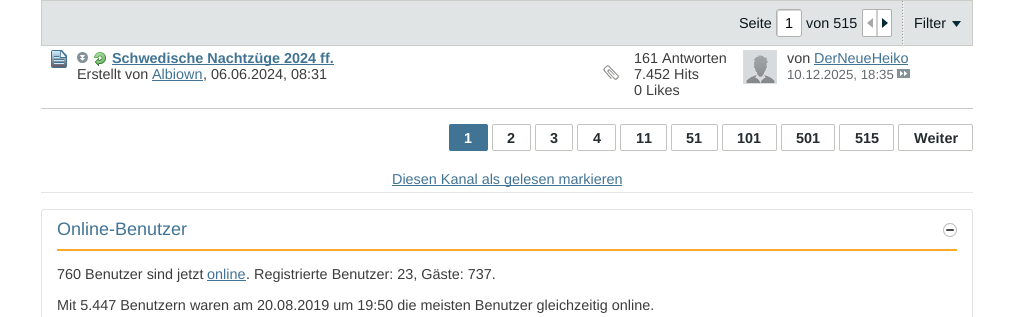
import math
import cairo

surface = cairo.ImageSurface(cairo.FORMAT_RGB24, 1014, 317)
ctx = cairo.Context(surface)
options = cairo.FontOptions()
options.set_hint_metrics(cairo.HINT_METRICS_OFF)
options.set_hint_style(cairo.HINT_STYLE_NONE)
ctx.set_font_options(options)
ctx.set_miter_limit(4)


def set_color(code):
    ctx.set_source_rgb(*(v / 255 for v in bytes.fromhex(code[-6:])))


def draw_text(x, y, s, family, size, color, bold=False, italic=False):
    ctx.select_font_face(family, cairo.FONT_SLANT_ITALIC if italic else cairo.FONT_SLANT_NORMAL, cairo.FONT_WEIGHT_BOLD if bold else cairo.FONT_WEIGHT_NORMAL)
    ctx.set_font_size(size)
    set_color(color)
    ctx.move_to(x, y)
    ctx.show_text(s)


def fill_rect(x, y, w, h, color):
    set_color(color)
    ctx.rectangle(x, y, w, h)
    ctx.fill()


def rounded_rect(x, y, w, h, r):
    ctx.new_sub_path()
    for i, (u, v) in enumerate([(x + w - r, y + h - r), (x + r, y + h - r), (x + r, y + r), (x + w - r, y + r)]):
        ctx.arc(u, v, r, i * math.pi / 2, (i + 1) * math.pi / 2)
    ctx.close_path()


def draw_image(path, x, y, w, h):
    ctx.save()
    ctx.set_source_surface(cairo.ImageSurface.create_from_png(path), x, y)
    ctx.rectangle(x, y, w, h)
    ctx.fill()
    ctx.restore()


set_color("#ffffff")
ctx.paint()
set_color("#e1e4e4")
ctx.rectangle(41.5, 0.5, 931, 45)
ctx.fill_preserve()
set_color("#ccccc9")
ctx.set_line_width(1)
ctx.stroke()
draw_text(739, 28, "Seite", "Liberation Sans", 14.4, "#09161b")
set_color("#ffffff")
rounded_rect(776, 9, 26, 28, 3)
ctx.fill()
set_color("#d5d5d5")
ctx.new_path()
ctx.move_to(780, 11)
ctx.line_to(800, 11)
ctx.line_to(801, 11)
ctx.curve_to(800.5, 10.5, 800, 10, 799, 10)
ctx.line_to(779, 10)
ctx.curve_to(778, 10, 777, 11, 777, 12)
ctx.line_to(777, 34)
ctx.curve_to(777, 35, 777.5, 35.5, 778, 36)
ctx.line_to(778, 16.5)
ctx.curve_to(778, 15.5, 777, 11, 780, 11)
ctx.close_path()
ctx.fill()
rounded_rect(776.5, 9.5, 25, 27, 2.5)
set_color("#b0b1ae")
ctx.stroke()
draw_text(785, 28, "1", "Liberation Sans", 14.4, "#000000")
draw_text(806, 28, "von 515", "Liberation Sans", 14.4, "#09161b")
set_color("#ffffff")
rounded_rect(862.5, 9.5, 29, 27, 1.5)
ctx.fill_preserve()
set_color("#b0b1ae")
ctx.stroke()
fill_rect(876, 10, 2, 26, "#cecfcd")
draw_image("assets/img1.png", 867, 18, 6, 10)
draw_image("assets/img2.png", 882, 18, 6, 10)
draw_image("assets/img3.png", 902, 1, 1, 43)
draw_image("assets/img4.png", 903, 2, 1, 43)
draw_text(914, 28, "Filter", "Liberation Sans", 14.4, "#09161b")
draw_image("assets/img5.png", 952, 21, 9, 6)
fill_rect(41, 108, 932, 1, "#c8cac8")
draw_image("assets/img6.png", 51, 50, 16, 18)
draw_image("assets/img7.png", 77, 52, 11, 11)
draw_image("assets/img8.png", 94, 52, 12, 14)
fill_rect(112, 64, 222, 1, "#417394")
draw_text(112, 63, "Schwedische Nachtzüge 2024 ff.", "Liberation Sans", 14.4, "#417394", bold=True)
draw_text(77, 79, "Erstellt von", "Liberation Sans", 14.4, "#3c3c3c")
draw_text(152, 79, "Albiown", "Liberation Sans", 14.4, "#417394")
fill_rect(152, 80, 51, 1, "#417394")
draw_text(203, 79, ", 06.06.2024, 08:31", "Liberation Sans", 14.4, "#3c3c3c")
draw_image("assets/img9.png", 603, 65, 16, 15)
draw_text(634, 63, "161 Antworten", "Liberation Sans", 14.4, "#3c3c3c")
draw_text(634, 79, "7.452 Hits", "Liberation Sans", 14.4, "#3c3c3c")
draw_text(634, 95, "0 Likes", "Liberation Sans", 14.4, "#3c3c3c")
ctx.rectangle(743.5, 50.5, 33, 33)
set_color("#d9dddf")
ctx.stroke()
draw_image("assets/img10.png", 744, 51, 32, 32)
draw_text(787, 63, "von", "Liberation Sans", 14.4, "#3c3c3c")
draw_text(814, 63, "DerNeueHeiko", "Liberation Sans", 14.4, "#417394")
fill_rect(814, 64, 94, 1, "#417394")
draw_text(787, 79, "10.12.2025, 18:35", "Liberation Sans", 13.25, "#656a6d")
draw_image("assets/img11.png", 897, 69, 13, 9)
set_color("#417394")
rounded_rect(449.5, 124.5, 38, 26, 1.5)
ctx.fill_preserve()
ctx.stroke()
draw_text(464, 143, "1", "Liberation Sans", 14.4, "#ffffff", bold=True)
rounded_rect(492.5, 124.5, 38, 26, 1.5)
set_color("#c3c3bf")
ctx.stroke()
draw_text(507, 143, "2", "Liberation Sans", 14.4, "#252c2f", bold=True)
rounded_rect(535.5, 124.5, 37, 26, 1.5)
set_color("#c3c3bf")
ctx.stroke()
draw_text(550, 143, "3", "Liberation Sans", 14.4, "#252c2f", bold=True)
rounded_rect(577.5, 124.5, 38, 26, 1.5)
set_color("#c3c3bf")
ctx.stroke()
draw_text(593, 143, "4", "Liberation Sans", 14.4, "#252c2f", bold=True)
rounded_rect(620.5, 124.5, 46, 26, 1.5)
set_color("#c3c3bf")
ctx.stroke()
draw_text(636, 143, "11", "Liberation Sans", 14.4, "#252c2f", bold=True)
rounded_rect(671.5, 124.5, 46, 26, 1.5)
set_color("#c3c3bf")
ctx.stroke()
draw_text(686, 143, "51", "Liberation Sans", 14.4, "#252c2f", bold=True)
rounded_rect(722.5, 124.5, 54, 26, 1.5)
set_color("#c3c3bf")
ctx.stroke()
draw_text(737, 143, "101", "Liberation Sans", 14.4, "#252c2f", bold=True)
rounded_rect(781.5, 124.5, 53, 26, 1.5)
set_color("#c3c3bf")
ctx.stroke()
draw_text(796, 143, "501", "Liberation Sans", 14.4, "#252c2f", bold=True)
rounded_rect(839.5, 124.5, 54, 26, 1.5)
set_color("#c3c3bf")
ctx.stroke()
draw_text(855, 143, "515", "Liberation Sans", 14.4, "#252c2f", bold=True)
rounded_rect(898.5, 124.5, 74, 26, 1.5)
set_color("#c3c3bf")
ctx.stroke()
draw_text(914, 143, "Weiter", "Liberation Sans", 14.4, "#252c2f", bold=True)
fill_rect(41, 192, 932, 1, "#e4e4e4")
fill_rect(392, 185, 230, 1, "#417394")
draw_text(392, 184, "Diesen Kanal als gelesen markieren", "Liberation Sans", 14.4, "#417394")
rounded_rect(41.5, 209.5, 931, 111, 2.5)
set_color("#e4e4e4")
ctx.stroke()
draw_text(57, 235, "Online-Benutzer", "Liberation Sans", 18, "#417394")
draw_image("assets/img12.png", 943, 223, 14, 14)
fill_rect(57, 249, 900, 2, "#fea927")
draw_text(57, 279, "760 Benutzer sind jetzt", "Liberation Sans", 14.4, "#3c3c3c")
draw_text(207, 279, "online", "Liberation Sans", 14.4, "#417394")
fill_rect(207, 280, 39, 1, "#417394")
draw_text(246, 279, ". Registrierte Benutzer: 23, Gäste: 737.", "Liberation Sans", 14.4, "#3c3c3c")
draw_text(57, 310, "Mit 5.447 Benutzern waren am 20.08.2019 um 19:50 die meisten Benutzer gleichzeitig online.", "Liberation Sans", 14.4, "#3c3c3c")
surface.write_to_png("output.png")
